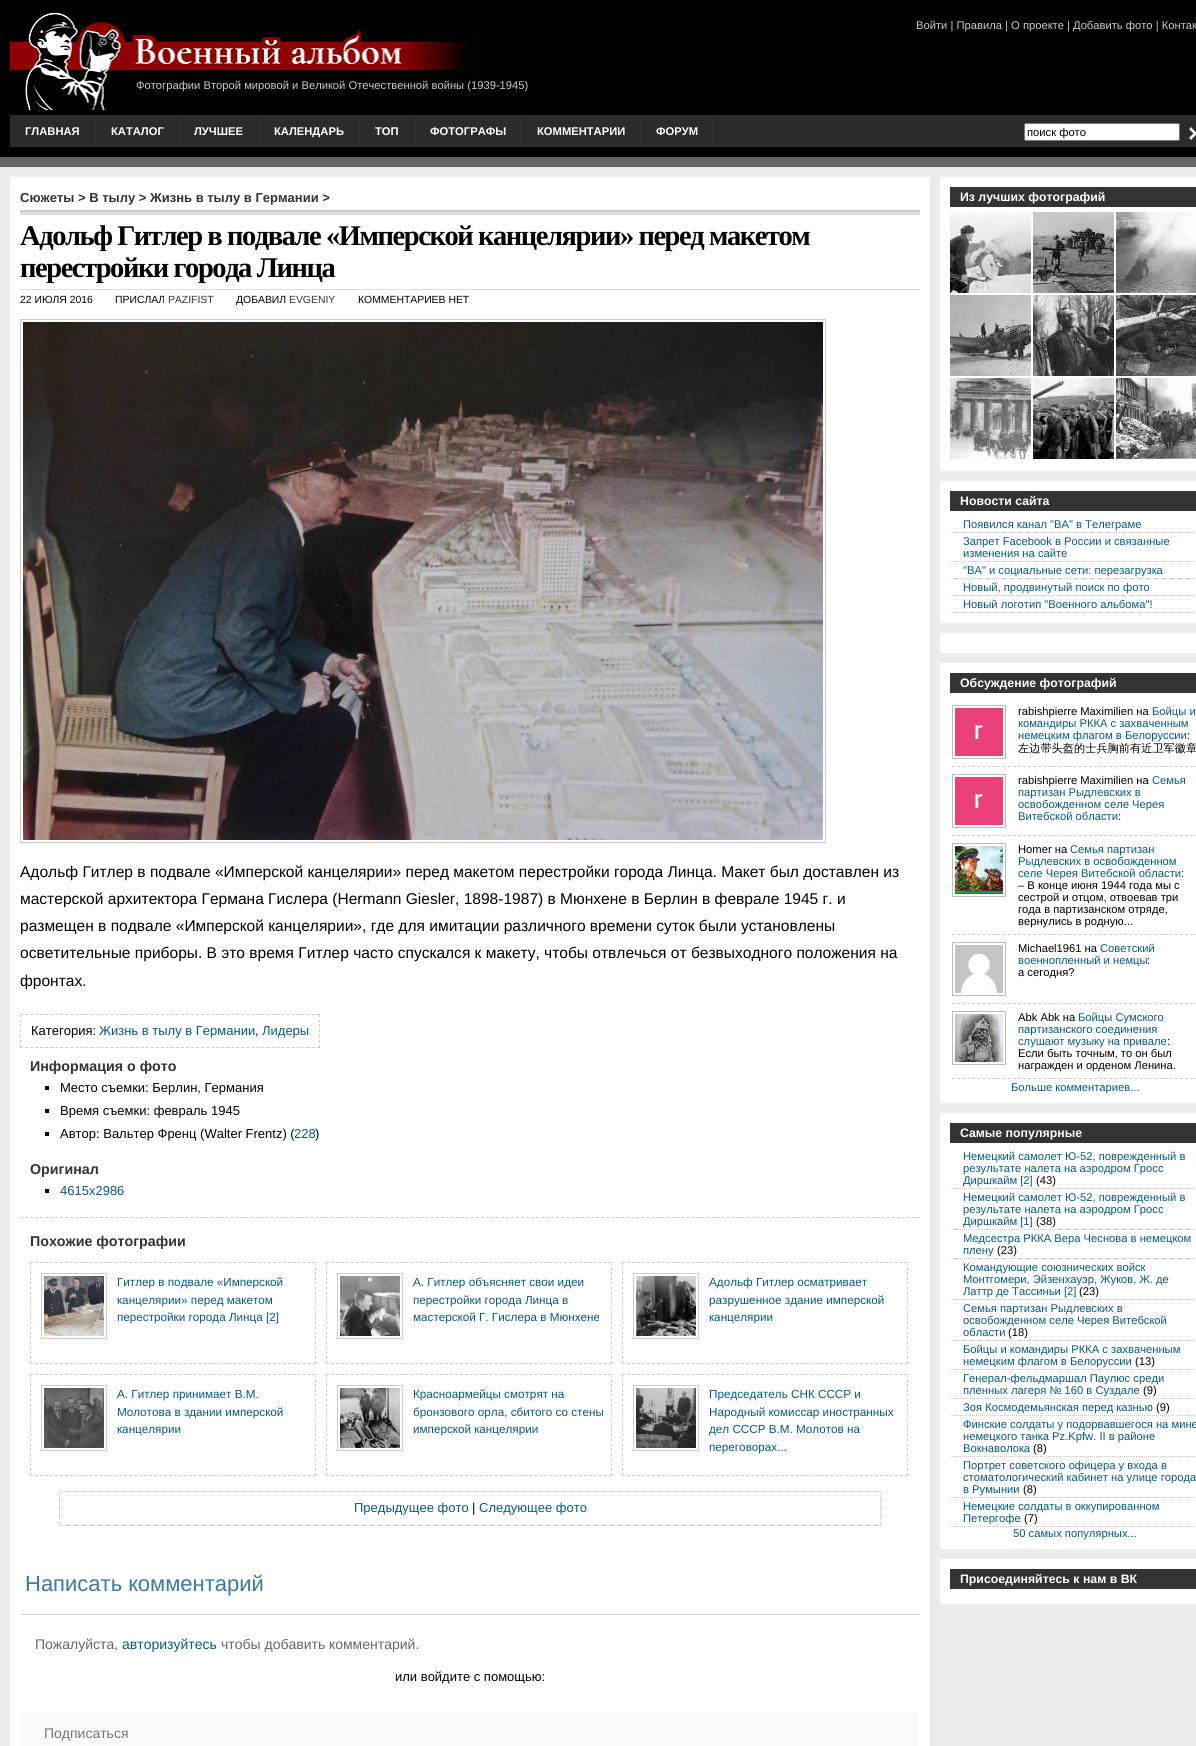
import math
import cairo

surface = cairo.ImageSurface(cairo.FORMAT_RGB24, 1196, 1746)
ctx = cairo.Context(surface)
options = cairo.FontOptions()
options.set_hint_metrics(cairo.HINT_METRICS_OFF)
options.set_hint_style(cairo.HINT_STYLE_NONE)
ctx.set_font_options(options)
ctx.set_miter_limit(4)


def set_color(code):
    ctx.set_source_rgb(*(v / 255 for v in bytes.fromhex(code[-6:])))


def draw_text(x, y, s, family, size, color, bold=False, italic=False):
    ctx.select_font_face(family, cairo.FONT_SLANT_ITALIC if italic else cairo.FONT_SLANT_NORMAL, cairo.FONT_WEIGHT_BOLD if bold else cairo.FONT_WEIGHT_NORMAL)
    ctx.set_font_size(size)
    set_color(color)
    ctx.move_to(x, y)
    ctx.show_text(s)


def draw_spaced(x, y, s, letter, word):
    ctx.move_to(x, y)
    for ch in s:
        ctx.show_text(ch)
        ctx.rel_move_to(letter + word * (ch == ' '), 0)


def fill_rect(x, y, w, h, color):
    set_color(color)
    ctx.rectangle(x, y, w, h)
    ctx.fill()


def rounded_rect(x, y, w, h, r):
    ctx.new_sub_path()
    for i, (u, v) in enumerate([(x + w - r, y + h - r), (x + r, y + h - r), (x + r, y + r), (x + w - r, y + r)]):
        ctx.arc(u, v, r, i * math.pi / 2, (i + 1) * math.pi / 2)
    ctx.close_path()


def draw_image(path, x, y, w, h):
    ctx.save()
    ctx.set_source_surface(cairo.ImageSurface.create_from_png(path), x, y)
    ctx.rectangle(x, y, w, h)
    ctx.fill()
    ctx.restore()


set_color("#696462")
ctx.paint()
fill_rect(0, 0, 1196, 157, "#000000")
draw_text(916, 29, "Войти | Правила | О проекте | Добавить фото | Контак", "Liberation Sans", 11.2, "#cccccc")
draw_image("assets/img1.png", 10, 12, 465, 98)
draw_text(136, 89, "Фотографии Второй мировой и Великой Отечественной войны (1939-1945)", "Liberation Sans", 11.2, "#cccccc")
fill_rect(10, 115, 1186, 32, "#2b2b2b")
fill_rect(95, 115, 1, 32, "#333333")
draw_text(25, 135, "ГЛАВНАЯ", "Liberation Sans", 11.2, "#ffffff", bold=True)
fill_rect(178, 115, 1, 32, "#333333")
draw_text(111, 135, "КАТАЛОГ", "Liberation Sans", 11.2, "#ffffff", bold=True)
fill_rect(258, 115, 1, 32, "#333333")
draw_text(194, 135, "ЛУЧШЕЕ", "Liberation Sans", 11.2, "#ffffff", bold=True)
fill_rect(359, 115, 1, 32, "#333333")
draw_text(274, 135, "КАЛЕНДАРЬ", "Liberation Sans", 11.2, "#ffffff", bold=True)
fill_rect(414, 115, 1, 32, "#333333")
draw_text(375, 135, "ТОП", "Liberation Sans", 11.2, "#ffffff", bold=True)
fill_rect(521, 115, 1, 32, "#333333")
draw_text(430, 135, "ФОТОГРАФЫ", "Liberation Sans", 11.2, "#ffffff", bold=True)
fill_rect(640, 115, 1, 32, "#333333")
draw_text(537, 135, "КОММЕНТАРИИ", "Liberation Sans", 11.2, "#ffffff", bold=True)
fill_rect(713, 115, 1, 32, "#333333")
draw_text(656, 135, "ФОРУМ", "Liberation Sans", 11.2, "#ffffff", bold=True)
rounded_rect(1024.5, 123.5, 155, 17, 1.5)
ctx.fill_preserve()
set_color("#767676")
ctx.set_line_width(1)
ctx.stroke()
draw_text(1027, 136, "поиск фото", "Liberation Sans", 11.2, "#000000")
draw_image("assets/img2.png", 1189, 127, 7, 13)
fill_rect(0, 167, 1196, 1579, "#ececec")
fill_rect(10, 177, 920, 1569, "#ffffff")
fill_rect(20, 210, 900, 2, "#cccccc")
draw_text(20, 202, "Сюжеты > В тылу > Жизнь в тылу в Германии >", "Liberation Sans", 13, "#333333", bold=True)
fill_rect(20, 212, 900, 3, "#dddddd")
fill_rect(20, 289, 900, 1, "#dddddd")
ctx.select_font_face("Liberation Serif", cairo.FONT_SLANT_NORMAL, cairo.FONT_WEIGHT_BOLD)
ctx.set_font_size(28.5)
set_color("#000000")
draw_spaced(20, 245, "Адольф Гитлер в подвале «Имперской канцелярии» перед макетом", -1.43, 0)
draw_spaced(20, 277, "перестройки города Линца", -1.43, 0)
draw_text(20, 303, "22 ИЮЛЯ 2016", "Liberation Sans", 10.4, "#000000")
draw_text(115, 303, "ПРИСЛАЛ", "Liberation Sans", 10.4, "#000000")
draw_text(168, 303, "PAZIFIST", "Liberation Sans", 10.4, "#333333")
draw_text(236, 303, "ДОБАВИЛ", "Liberation Sans", 10.4, "#000000")
draw_text(289, 303, "EVGENIY", "Liberation Sans", 10.4, "#333333")
draw_text(358, 303, "КОММЕНТАРИЕВ НЕТ", "Liberation Sans", 10.4, "#000000")
ctx.rectangle(20.5, 319.5, 805, 523)
set_color("#cccccc")
ctx.stroke()
draw_image("assets/img3.png", 23, 322, 800, 518)
draw_text(20, 877, "Адольф Гитлер в подвале «Имперской канцелярии» перед макетом перестройки города Линца. Макет был доставлен из", "Liberation Sans", 15.55, "#000000")
draw_text(20, 904, "мастерской архитектора Германа Гислера (Hermann Giesler, 1898-1987) в Мюнхене в Берлин в феврале 1945 г. и", "Liberation Sans", 15.55, "#000000")
draw_text(20, 931, "размещен в подвале «Имперской канцелярии», где для имитации различного времени суток были установлены", "Liberation Sans", 15.55, "#000000")
draw_text(20, 958, "осветительные приборы. В это время Гитлер часто спускался к макету, чтобы отвлечься от безвыходного положения на", "Liberation Sans", 15.55, "#000000")
draw_text(20, 986, "фронтах.", "Liberation Sans", 15.55, "#000000")
ctx.new_path()
ctx.move_to(20, 1014.5)
ctx.line_to(320, 1014.5)
set_color("#cccccc")
ctx.set_dash([3, 2.03])
ctx.stroke()
ctx.new_path()
ctx.move_to(319.5, 1014)
ctx.line_to(319.5, 1048)
ctx.set_dash([3, 2.17])
ctx.stroke()
ctx.new_path()
ctx.move_to(20, 1047.5)
ctx.line_to(320, 1047.5)
ctx.set_dash([3, 2.03])
ctx.stroke()
ctx.new_path()
ctx.move_to(20.5, 1014)
ctx.line_to(20.5, 1048)
ctx.set_dash([3, 2.17])
ctx.stroke()
draw_text(31, 1035, "Категория:", "Liberation Sans", 13, "#000000")
draw_text(99, 1035, "Жизнь в тылу в Германии", "Liberation Sans", 13, "#055a85")
draw_text(255, 1035, ",", "Liberation Sans", 13, "#000000")
draw_text(262, 1035, "Лидеры", "Liberation Sans", 13, "#055a85")
draw_text(30, 1071, "Информация о фото", "Liberation Sans", 14.25, "#333333", bold=True)
fill_rect(45, 1086, 4, 4, "#000000")
draw_text(60, 1092, "Место съемки: Берлин, Германия", "Liberation Sans", 13, "#000000")
fill_rect(45, 1109, 4, 4, "#000000")
draw_text(60, 1115, "Время съемки: февраль 1945", "Liberation Sans", 13, "#000000")
fill_rect(45, 1132, 4, 4, "#000000")
draw_text(60, 1138, "Автор: Вальтер Френц (Walter Frentz) (", "Liberation Sans", 13, "#000000")
draw_text(294, 1138, "228", "Liberation Sans", 13, "#055a85")
draw_text(315, 1138, ")", "Liberation Sans", 13, "#000000")
draw_text(30, 1174, "Оригинал", "Liberation Sans", 14.25, "#333333", bold=True)
fill_rect(45, 1189, 4, 4, "#000000")
draw_text(60, 1195, "4615x2986", "Liberation Sans", 13, "#055a85")
ctx.new_path()
ctx.move_to(20, 1217.5)
ctx.line_to(920, 1217.5)
set_color("#cccccc")
ctx.set_dash([3, 2.01])
ctx.stroke()
draw_text(30, 1246, "Похожие фотографии", "Liberation Sans", 14.25, "#333333", bold=True)
ctx.new_path()
ctx.move_to(30, 1262.5)
ctx.line_to(316, 1262.5)
set_color("#cccccc")
ctx.set_dash([3, 1.96])
ctx.stroke()
ctx.new_path()
ctx.move_to(315.5, 1262)
ctx.line_to(315.5, 1364)
ctx.set_dash([3, 1.95])
ctx.stroke()
ctx.new_path()
ctx.move_to(30, 1363.5)
ctx.line_to(316, 1363.5)
ctx.set_dash([3, 1.96])
ctx.stroke()
ctx.new_path()
ctx.move_to(30.5, 1262)
ctx.line_to(30.5, 1364)
ctx.set_dash([3, 1.95])
ctx.stroke()
ctx.rectangle(41.5, 1273.5, 65, 65)
ctx.set_dash([])
ctx.stroke()
draw_image("assets/img4.png", 44, 1276, 60, 60)
draw_text(117, 1286, "Гитлер в подвале «Имперской", "Liberation Sans", 11.7, "#055a85")
draw_text(117, 1304, "канцелярии» перед макетом", "Liberation Sans", 11.7, "#055a85")
draw_text(117, 1321, "перестройки города Линца [2]", "Liberation Sans", 11.7, "#055a85")
ctx.new_path()
ctx.move_to(326, 1262.5)
ctx.line_to(612, 1262.5)
set_color("#cccccc")
ctx.set_dash([3, 1.96])
ctx.stroke()
ctx.new_path()
ctx.move_to(611.5, 1262)
ctx.line_to(611.5, 1364)
ctx.set_dash([3, 1.95])
ctx.stroke()
ctx.new_path()
ctx.move_to(326, 1363.5)
ctx.line_to(612, 1363.5)
ctx.set_dash([3, 1.96])
ctx.stroke()
ctx.new_path()
ctx.move_to(326.5, 1262)
ctx.line_to(326.5, 1364)
ctx.set_dash([3, 1.95])
ctx.stroke()
ctx.rectangle(337.5, 1273.5, 65, 65)
ctx.set_dash([])
ctx.stroke()
draw_image("assets/img5.png", 340, 1276, 60, 60)
draw_text(413, 1286, "А. Гитлер объясняет свои идеи", "Liberation Sans", 11.7, "#055a85")
draw_text(413, 1304, "перестройки города Линца в", "Liberation Sans", 11.7, "#055a85")
draw_text(413, 1321, "мастерской Г. Гислера в Мюнхене", "Liberation Sans", 11.7, "#055a85")
ctx.new_path()
ctx.move_to(622, 1262.5)
ctx.line_to(908, 1262.5)
set_color("#cccccc")
ctx.set_dash([3, 1.96])
ctx.stroke()
ctx.new_path()
ctx.move_to(907.5, 1262)
ctx.line_to(907.5, 1364)
ctx.set_dash([3, 1.95])
ctx.stroke()
ctx.new_path()
ctx.move_to(622, 1363.5)
ctx.line_to(908, 1363.5)
ctx.set_dash([3, 1.96])
ctx.stroke()
ctx.new_path()
ctx.move_to(622.5, 1262)
ctx.line_to(622.5, 1364)
ctx.set_dash([3, 1.95])
ctx.stroke()
ctx.rectangle(633.5, 1273.5, 65, 65)
ctx.set_dash([])
ctx.stroke()
draw_image("assets/img6.png", 636, 1276, 60, 60)
draw_text(709, 1286, "Адольф Гитлер осматривает", "Liberation Sans", 11.7, "#055a85")
draw_text(709, 1304, "разрушенное здание имперской", "Liberation Sans", 11.7, "#055a85")
draw_text(709, 1321, "канцелярии", "Liberation Sans", 11.7, "#055a85")
ctx.new_path()
ctx.move_to(30, 1374.5)
ctx.line_to(316, 1374.5)
set_color("#cccccc")
ctx.set_dash([3, 1.96])
ctx.stroke()
ctx.new_path()
ctx.move_to(315.5, 1374)
ctx.line_to(315.5, 1476)
ctx.set_dash([3, 1.95])
ctx.stroke()
ctx.new_path()
ctx.move_to(30, 1475.5)
ctx.line_to(316, 1475.5)
ctx.set_dash([3, 1.96])
ctx.stroke()
ctx.new_path()
ctx.move_to(30.5, 1374)
ctx.line_to(30.5, 1476)
ctx.set_dash([3, 1.95])
ctx.stroke()
ctx.rectangle(41.5, 1385.5, 65, 65)
ctx.set_dash([])
ctx.stroke()
draw_image("assets/img7.png", 44, 1388, 60, 60)
draw_text(117, 1398, "А. Гитлер принимает В.М.", "Liberation Sans", 11.7, "#055a85")
draw_text(117, 1416, "Молотова в здании имперской", "Liberation Sans", 11.7, "#055a85")
draw_text(117, 1433, "канцелярии", "Liberation Sans", 11.7, "#055a85")
ctx.new_path()
ctx.move_to(326, 1374.5)
ctx.line_to(612, 1374.5)
set_color("#cccccc")
ctx.set_dash([3, 1.96])
ctx.stroke()
ctx.new_path()
ctx.move_to(611.5, 1374)
ctx.line_to(611.5, 1476)
ctx.set_dash([3, 1.95])
ctx.stroke()
ctx.new_path()
ctx.move_to(326, 1475.5)
ctx.line_to(612, 1475.5)
ctx.set_dash([3, 1.96])
ctx.stroke()
ctx.new_path()
ctx.move_to(326.5, 1374)
ctx.line_to(326.5, 1476)
ctx.set_dash([3, 1.95])
ctx.stroke()
ctx.rectangle(337.5, 1385.5, 65, 65)
ctx.set_dash([])
ctx.stroke()
draw_image("assets/img8.png", 340, 1388, 60, 60)
draw_text(413, 1398, "Красноармейцы смотрят на", "Liberation Sans", 11.7, "#055a85")
draw_text(413, 1416, "бронзового орла, сбитого со стены", "Liberation Sans", 11.7, "#055a85")
draw_text(413, 1433, "имперской канцелярии", "Liberation Sans", 11.7, "#055a85")
ctx.new_path()
ctx.move_to(622, 1374.5)
ctx.line_to(908, 1374.5)
set_color("#cccccc")
ctx.set_dash([3, 1.96])
ctx.stroke()
ctx.new_path()
ctx.move_to(907.5, 1374)
ctx.line_to(907.5, 1476)
ctx.set_dash([3, 1.95])
ctx.stroke()
ctx.new_path()
ctx.move_to(622, 1475.5)
ctx.line_to(908, 1475.5)
ctx.set_dash([3, 1.96])
ctx.stroke()
ctx.new_path()
ctx.move_to(622.5, 1374)
ctx.line_to(622.5, 1476)
ctx.set_dash([3, 1.95])
ctx.stroke()
ctx.rectangle(633.5, 1385.5, 65, 65)
ctx.set_dash([])
ctx.stroke()
draw_image("assets/img9.png", 636, 1388, 60, 60)
draw_text(709, 1398, "Председатель СНК СССР и", "Liberation Sans", 11.7, "#055a85")
draw_text(709, 1416, "Народный комиссар иностранных", "Liberation Sans", 11.7, "#055a85")
draw_text(709, 1433, "дел СССР В.М. Молотов на", "Liberation Sans", 11.7, "#055a85")
draw_text(709, 1451, "переговорах...", "Liberation Sans", 11.7, "#055a85")
ctx.new_path()
ctx.move_to(59, 1491.5)
ctx.line_to(881, 1491.5)
set_color("#cccccc")
ctx.set_dash([1, 1])
ctx.stroke()
ctx.new_path()
ctx.move_to(880.5, 1491)
ctx.line_to(880.5, 1526)
ctx.stroke()
ctx.new_path()
ctx.move_to(59, 1525.5)
ctx.line_to(881, 1525.5)
ctx.stroke()
ctx.new_path()
ctx.move_to(59.5, 1491)
ctx.line_to(59.5, 1526)
ctx.stroke()
draw_text(354, 1512, "Предыдущее фото", "Liberation Sans", 13, "#055a85")
draw_text(472, 1512, "|", "Liberation Sans", 13, "#000000")
draw_text(479, 1512, "Следующее фото", "Liberation Sans", 13, "#055a85")
draw_text(25, 1591, "Написать комментарий", "Liberation Sans", 22, "#3c78a7")
fill_rect(20, 1614, 900, 1, "#dddddd")
draw_text(35, 1649, "Пожалуйста,", "Liberation Sans", 14, "#666666")
draw_text(122, 1649, "авторизуйтесь", "Liberation Sans", 14, "#055a85")
draw_text(221, 1649, "чтобы добавить комментарий.", "Liberation Sans", 14, "#666666")
draw_text(395, 1681, "или войдите с помощью:", "Liberation Sans", 13, "#000000")
fill_rect(21, 1712, 898, 34, "#f9f9f9")
draw_text(44, 1738, "Подписаться", "Liberation Sans", 14, "#777777")
fill_rect(940, 177, 256, 294, "#ffffff")
fill_rect(950, 187, 246, 20, "#333333")
draw_text(960, 201, "Из лучших фотографий", "Liberation Sans", 12.3, "#ffffff", bold=True)
draw_image("assets/img10.png", 950, 212, 81, 81)
draw_image("assets/img11.png", 1033, 212, 81, 81)
draw_image("assets/img12.png", 1116, 212, 80, 81)
draw_image("assets/img13.png", 950, 295, 81, 81)
draw_image("assets/img14.png", 1033, 295, 81, 81)
draw_image("assets/img15.png", 1116, 295, 80, 81)
draw_image("assets/img16.png", 950, 378, 81, 81)
draw_image("assets/img17.png", 1033, 378, 81, 81)
draw_image("assets/img18.png", 1116, 378, 80, 81)
fill_rect(940, 481, 256, 142, "#ffffff")
fill_rect(950, 491, 246, 20, "#333333")
draw_text(960, 505, "Новости сайта", "Liberation Sans", 12.3, "#ffffff", bold=True)
ctx.new_path()
ctx.move_to(950, 532.5)
ctx.line_to(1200, 532.5)
set_color("#cccccc")
ctx.stroke()
draw_text(963, 528, "Появился канал \"ВА\" в Телеграме", "Liberation Sans", 11.2, "#055a85")
ctx.new_path()
ctx.move_to(950, 561.5)
ctx.line_to(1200, 561.5)
set_color("#cccccc")
ctx.stroke()
draw_text(963, 545, "Запрет Facebook в России и связанные", "Liberation Sans", 11.2, "#055a85")
draw_text(963, 557, "изменения на сайте", "Liberation Sans", 11.2, "#055a85")
ctx.new_path()
ctx.move_to(950, 578.5)
ctx.line_to(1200, 578.5)
set_color("#cccccc")
ctx.stroke()
draw_text(963, 574, "\"ВА\" и социальные сети: перезагрузка", "Liberation Sans", 11.2, "#055a85")
ctx.new_path()
ctx.move_to(950, 595.5)
ctx.line_to(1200, 595.5)
set_color("#cccccc")
ctx.stroke()
draw_text(963, 591, "Новый, продвинутый поиск по фото", "Liberation Sans", 11.2, "#055a85")
ctx.new_path()
ctx.move_to(950, 612.5)
ctx.line_to(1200, 612.5)
set_color("#cccccc")
ctx.stroke()
draw_text(963, 608, "Новый логотип \"Военного альбома\"!", "Liberation Sans", 11.2, "#055a85")
fill_rect(940, 633, 256, 20, "#ffffff")
fill_rect(940, 663, 256, 440, "#ffffff")
fill_rect(950, 673, 246, 20, "#333333")
draw_text(960, 687, "Обсуждение фотографий", "Liberation Sans", 12.3, "#ffffff", bold=True)
ctx.new_path()
ctx.move_to(952, 766.5)
ctx.line_to(1016, 766.5)
set_color("#cccccc")
ctx.set_dash([3, 2.08])
ctx.stroke()
ctx.rectangle(952.5, 705.5, 53, 53)
set_color("#bbbbbb")
ctx.set_dash([])
ctx.stroke()
draw_image("assets/img19.png", 955, 708, 48, 48)
ctx.new_path()
ctx.move_to(1018, 766.5)
ctx.line_to(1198, 766.5)
set_color("#cccccc")
ctx.set_dash([3, 2.06])
ctx.stroke()
draw_text(1018, 715, "rabishpierre Maximilien на", "Liberation Sans", 11.2, "#000000")
draw_text(1152, 715, "Бойцы и", "Liberation Sans", 11.2, "#055a85")
draw_text(1018, 727, "командиры РККА с захваченным", "Liberation Sans", 11.2, "#055a85")
draw_text(1018, 739, "немецким флагом в Белоруссии", "Liberation Sans", 11.2, "#055a85")
draw_text(1187, 739, ":", "Liberation Sans", 11.2, "#000000")
draw_text(1018, 752, "左边带头盔的士兵胸前有近卫军徽章", "WenQuanYi Zen Hei Medium", 11.2, "#000000")
ctx.new_path()
ctx.move_to(952, 835.5)
ctx.line_to(1016, 835.5)
set_color("#cccccc")
ctx.set_dash([3, 2.08])
ctx.stroke()
ctx.rectangle(952.5, 774.5, 53, 53)
set_color("#bbbbbb")
ctx.set_dash([])
ctx.stroke()
draw_image("assets/img19.png", 955, 777, 48, 48)
ctx.new_path()
ctx.move_to(1018, 835.5)
ctx.line_to(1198, 835.5)
set_color("#cccccc")
ctx.set_dash([3, 2.06])
ctx.stroke()
draw_text(1018, 784, "rabishpierre Maximilien на", "Liberation Sans", 11.2, "#000000")
draw_text(1152, 784, "Семья", "Liberation Sans", 11.2, "#055a85")
draw_text(1018, 796, "партизан Рыдлевских в", "Liberation Sans", 11.2, "#055a85")
draw_text(1018, 808, "освобожденном селе Черея", "Liberation Sans", 11.2, "#055a85")
draw_text(1018, 820, "Витебской области", "Liberation Sans", 11.2, "#055a85")
draw_text(1118, 820, ":", "Liberation Sans", 11.2, "#000000")
ctx.new_path()
ctx.move_to(952, 934.5)
ctx.line_to(1016, 934.5)
set_color("#cccccc")
ctx.set_dash([3, 2.08])
ctx.stroke()
ctx.rectangle(952.5, 843.5, 53, 53)
set_color("#bbbbbb")
ctx.set_dash([])
ctx.stroke()
draw_image("assets/img20.png", 955, 846, 48, 48)
ctx.new_path()
ctx.move_to(1018, 934.5)
ctx.line_to(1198, 934.5)
set_color("#cccccc")
ctx.set_dash([3, 2.06])
ctx.stroke()
draw_text(1018, 853, "Homer на", "Liberation Sans", 11.2, "#000000")
draw_text(1070, 853, "Семья партизан", "Liberation Sans", 11.2, "#055a85")
draw_text(1018, 865, "Рыдлевских в освобожденном", "Liberation Sans", 11.2, "#055a85")
draw_text(1018, 877, "селе Черея Витебской области", "Liberation Sans", 11.2, "#055a85")
draw_text(1181, 877, ":", "Liberation Sans", 11.2, "#000000")
draw_text(1018, 889, "– В конце июня 1944 года мы с", "Liberation Sans", 11.2, "#000000")
draw_text(1018, 901, "сестрой и отцом, отвоевав три", "Liberation Sans", 11.2, "#000000")
draw_text(1018, 913, "года в партизанском отряде,", "Liberation Sans", 11.2, "#000000")
draw_text(1018, 925, "вернулись в родную...", "Liberation Sans", 11.2, "#000000")
ctx.new_path()
ctx.move_to(952, 1003.5)
ctx.line_to(1016, 1003.5)
set_color("#cccccc")
ctx.set_dash([3, 2.08])
ctx.stroke()
ctx.rectangle(952.5, 942.5, 53, 53)
set_color("#bbbbbb")
ctx.set_dash([])
ctx.stroke()
draw_image("assets/img21.png", 955, 945, 48, 48)
ctx.new_path()
ctx.move_to(1018, 1003.5)
ctx.line_to(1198, 1003.5)
set_color("#cccccc")
ctx.set_dash([3, 2.06])
ctx.stroke()
draw_text(1018, 952, "Michael1961 на", "Liberation Sans", 11.2, "#000000")
draw_text(1100, 952, "Советский", "Liberation Sans", 11.2, "#055a85")
draw_text(1018, 964, "военнопленный и немцы", "Liberation Sans", 11.2, "#055a85")
draw_text(1147, 964, ":", "Liberation Sans", 11.2, "#000000")
draw_text(1018, 976, "а сегодня?", "Liberation Sans", 11.2, "#000000")
ctx.new_path()
ctx.move_to(952, 1078.5)
ctx.line_to(1016, 1078.5)
set_color("#cccccc")
ctx.set_dash([3, 2.08])
ctx.stroke()
ctx.rectangle(952.5, 1011.5, 53, 53)
set_color("#bbbbbb")
ctx.set_dash([])
ctx.stroke()
draw_image("assets/img22.png", 955, 1014, 48, 48)
ctx.new_path()
ctx.move_to(1018, 1078.5)
ctx.line_to(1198, 1078.5)
set_color("#cccccc")
ctx.set_dash([3, 2.06])
ctx.stroke()
draw_text(1018, 1021, "Abk Abk на", "Liberation Sans", 11.2, "#000000")
draw_text(1078, 1021, "Бойцы Сумского", "Liberation Sans", 11.2, "#055a85")
draw_text(1018, 1033, "партизанского соединения", "Liberation Sans", 11.2, "#055a85")
draw_text(1018, 1045, "слушают музыку на привале", "Liberation Sans", 11.2, "#055a85")
draw_text(1167, 1045, ":", "Liberation Sans", 11.2, "#000000")
draw_text(1018, 1057, "Если быть точным, то он был", "Liberation Sans", 11.2, "#000000")
draw_text(1018, 1069, "награжден и орденом Ленина.", "Liberation Sans", 11.2, "#000000")
draw_text(1011, 1091, "Больше комментариев...", "Liberation Sans", 11.2, "#055a85")
fill_rect(940, 1113, 256, 436, "#ffffff")
fill_rect(950, 1123, 246, 20, "#333333")
draw_text(960, 1137, "Самые популярные", "Liberation Sans", 12.3, "#ffffff", bold=True)
ctx.new_path()
ctx.move_to(950, 1188.5)
ctx.line_to(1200, 1188.5)
set_color("#cccccc")
ctx.set_dash([1, 1])
ctx.stroke()
draw_text(963, 1160, "Немецкий самолет Ю-52, поврежденный в", "Liberation Sans", 11.2, "#055a85")
draw_text(963, 1172, "результате налета на аэродром Гросс", "Liberation Sans", 11.2, "#055a85")
draw_text(963, 1184, "Диршкайм [2]", "Liberation Sans", 11.2, "#055a85")
draw_text(1036, 1184, "(43)", "Liberation Sans", 11.2, "#000000")
ctx.new_path()
ctx.move_to(950, 1229.5)
ctx.line_to(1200, 1229.5)
set_color("#cccccc")
ctx.stroke()
draw_text(963, 1201, "Немецкий самолет Ю-52, поврежденный в", "Liberation Sans", 11.2, "#055a85")
draw_text(963, 1213, "результате налета на аэродром Гросс", "Liberation Sans", 11.2, "#055a85")
draw_text(963, 1225, "Диршкайм [1]", "Liberation Sans", 11.2, "#055a85")
draw_text(1036, 1225, "(38)", "Liberation Sans", 11.2, "#000000")
ctx.new_path()
ctx.move_to(950, 1258.5)
ctx.line_to(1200, 1258.5)
set_color("#cccccc")
ctx.stroke()
draw_text(963, 1242, "Медсестра РККА Вера Чеснова в немецком", "Liberation Sans", 11.2, "#055a85")
draw_text(963, 1254, "плену", "Liberation Sans", 11.2, "#055a85")
draw_text(997, 1254, "(23)", "Liberation Sans", 11.2, "#000000")
ctx.new_path()
ctx.move_to(950, 1299.5)
ctx.line_to(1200, 1299.5)
set_color("#cccccc")
ctx.stroke()
draw_text(963, 1271, "Командующие союзнических войск", "Liberation Sans", 11.2, "#055a85")
draw_text(963, 1283, "Монтгомери, Эйзенхауэр, Жуков, Ж. де", "Liberation Sans", 11.2, "#055a85")
draw_text(963, 1295, "Латтр де Тассиньи [2]", "Liberation Sans", 11.2, "#055a85")
draw_text(1079, 1295, "(23)", "Liberation Sans", 11.2, "#000000")
ctx.new_path()
ctx.move_to(950, 1340.5)
ctx.line_to(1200, 1340.5)
set_color("#cccccc")
ctx.stroke()
draw_text(963, 1312, "Семья партизан Рыдлевских в", "Liberation Sans", 11.2, "#055a85")
draw_text(963, 1324, "освобожденном селе Черея Витебской", "Liberation Sans", 11.2, "#055a85")
draw_text(963, 1336, "области", "Liberation Sans", 11.2, "#055a85")
draw_text(1008, 1336, "(18)", "Liberation Sans", 11.2, "#000000")
ctx.new_path()
ctx.move_to(950, 1369.5)
ctx.line_to(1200, 1369.5)
set_color("#cccccc")
ctx.stroke()
draw_text(963, 1353, "Бойцы и командиры РККА с захваченным", "Liberation Sans", 11.2, "#055a85")
draw_text(963, 1365, "немецким флагом в Белоруссии", "Liberation Sans", 11.2, "#055a85")
draw_text(1135, 1365, "(13)", "Liberation Sans", 11.2, "#000000")
ctx.new_path()
ctx.move_to(950, 1398.5)
ctx.line_to(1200, 1398.5)
set_color("#cccccc")
ctx.stroke()
draw_text(963, 1382, "Генерал-фельдмаршал Паулюс среди", "Liberation Sans", 11.2, "#055a85")
draw_text(963, 1394, "пленных лагеря № 160 в Суздале", "Liberation Sans", 11.2, "#055a85")
draw_text(1143, 1394, "(9)", "Liberation Sans", 11.2, "#000000")
ctx.new_path()
ctx.move_to(950, 1415.5)
ctx.line_to(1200, 1415.5)
set_color("#cccccc")
ctx.stroke()
draw_text(963, 1411, "Зоя Космодемьянская перед казнью", "Liberation Sans", 11.2, "#055a85")
draw_text(1156, 1411, "(9)", "Liberation Sans", 11.2, "#000000")
ctx.new_path()
ctx.move_to(950, 1456.5)
ctx.line_to(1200, 1456.5)
set_color("#cccccc")
ctx.stroke()
draw_text(963, 1428, "Финские солдаты у подорвавшегося на мине", "Liberation Sans", 11.2, "#055a85")
draw_text(963, 1440, "немецкого танка Pz.Kpfw. II в районе", "Liberation Sans", 11.2, "#055a85")
draw_text(963, 1452, "Вокнаволока", "Liberation Sans", 11.2, "#055a85")
draw_text(1033, 1452, "(8)", "Liberation Sans", 11.2, "#000000")
ctx.new_path()
ctx.move_to(950, 1497.5)
ctx.line_to(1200, 1497.5)
set_color("#cccccc")
ctx.stroke()
draw_text(963, 1469, "Портрет советского офицера у входа в", "Liberation Sans", 11.2, "#055a85")
draw_text(963, 1481, "стоматологический кабинет на улице города", "Liberation Sans", 11.2, "#055a85")
draw_text(963, 1493, "в Румынии", "Liberation Sans", 11.2, "#055a85")
draw_text(1023, 1493, "(8)", "Liberation Sans", 11.2, "#000000")
ctx.new_path()
ctx.move_to(950, 1526.5)
ctx.line_to(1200, 1526.5)
set_color("#cccccc")
ctx.stroke()
draw_text(963, 1510, "Немецкие солдаты в оккупированном", "Liberation Sans", 11.2, "#055a85")
draw_text(963, 1522, "Петергофе", "Liberation Sans", 11.2, "#055a85")
draw_text(1024, 1522, "(7)", "Liberation Sans", 11.2, "#000000")
draw_text(1013, 1537, "50 самых популярных...", "Liberation Sans", 11.2, "#055a85")
fill_rect(940, 1559, 256, 45, "#ffffff")
fill_rect(950, 1569, 246, 20, "#333333")
draw_text(960, 1583, "Присоединяйтесь к нам в ВК", "Liberation Sans", 12.3, "#ffffff", bold=True)
surface.write_to_png("output.png")
